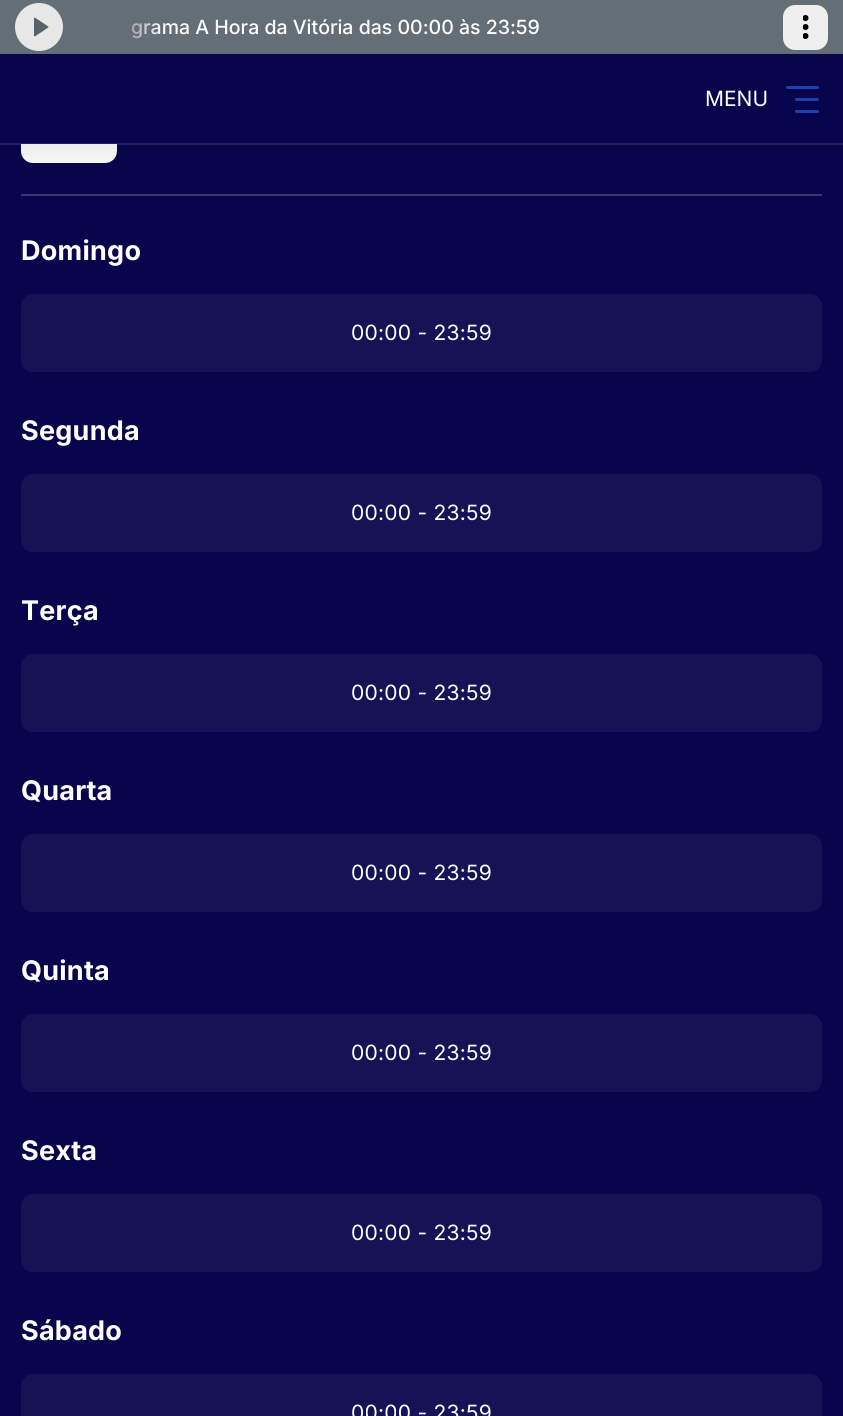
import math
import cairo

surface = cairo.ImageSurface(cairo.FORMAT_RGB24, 843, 1416)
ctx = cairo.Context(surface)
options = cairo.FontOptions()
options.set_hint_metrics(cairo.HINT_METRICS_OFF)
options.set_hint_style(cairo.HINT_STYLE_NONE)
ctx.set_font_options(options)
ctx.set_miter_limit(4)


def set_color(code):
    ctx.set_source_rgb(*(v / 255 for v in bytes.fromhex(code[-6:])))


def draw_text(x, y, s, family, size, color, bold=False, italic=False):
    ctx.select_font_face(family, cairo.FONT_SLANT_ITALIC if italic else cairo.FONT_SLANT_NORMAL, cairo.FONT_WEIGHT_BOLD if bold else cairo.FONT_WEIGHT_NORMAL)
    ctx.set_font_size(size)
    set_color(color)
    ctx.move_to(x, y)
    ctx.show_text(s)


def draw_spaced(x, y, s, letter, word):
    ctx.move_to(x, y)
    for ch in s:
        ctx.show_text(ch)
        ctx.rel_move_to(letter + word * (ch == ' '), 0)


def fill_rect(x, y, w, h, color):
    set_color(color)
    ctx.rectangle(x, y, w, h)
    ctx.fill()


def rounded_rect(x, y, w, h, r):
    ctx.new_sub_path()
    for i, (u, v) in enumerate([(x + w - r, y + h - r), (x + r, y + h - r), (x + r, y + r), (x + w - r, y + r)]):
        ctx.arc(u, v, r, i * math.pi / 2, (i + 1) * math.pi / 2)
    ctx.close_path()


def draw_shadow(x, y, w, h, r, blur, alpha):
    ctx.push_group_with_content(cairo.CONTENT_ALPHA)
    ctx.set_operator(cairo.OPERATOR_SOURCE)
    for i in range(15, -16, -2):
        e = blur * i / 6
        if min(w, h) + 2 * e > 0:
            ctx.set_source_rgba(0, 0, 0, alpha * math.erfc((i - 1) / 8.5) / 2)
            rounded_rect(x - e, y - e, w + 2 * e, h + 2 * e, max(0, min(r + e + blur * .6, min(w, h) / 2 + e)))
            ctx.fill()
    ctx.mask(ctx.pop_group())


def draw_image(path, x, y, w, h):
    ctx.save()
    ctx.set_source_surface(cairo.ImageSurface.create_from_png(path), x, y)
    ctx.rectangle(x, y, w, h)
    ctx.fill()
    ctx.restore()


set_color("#09054d")
ctx.paint()
draw_image("assets/img2.png", 21, 144, 96, 19)
set_color("#000000")
draw_shadow(0, 57, 843, 90, 0, 10.5, 0.07)
fill_rect(0, 0, 843, 54, "#646e77")
set_color("#e7e7e7")
ctx.arc(39, 27, 24, 0, 2 * math.pi)
ctx.fill()
draw_image("assets/img1.png", 34, 17, 15, 20)
draw_text(131, 34, "grama A Hora da Vitória das 00:00 às 23:59", "Inter Medium", 19.5, "#ffffff")
gradient = cairo.LinearGradient(99, 27, 162, 27)
gradient.add_color_stop_rgba(0.2, 0.392, 0.431, 0.467, 1)
gradient.add_color_stop_rgba(1, 0.392, 0.431, 0.467, 0)
ctx.set_source(gradient)
ctx.rectangle(131, 23, 29, 16)
ctx.fill()
set_color("#efefef")
rounded_rect(783, 5, 45, 45, 12)
ctx.fill()
ctx.save()
ctx.rectangle(803, 15, 6, 24)
ctx.clip()
set_color("#000000")
ctx.arc(805.5, 36, 3, 0, 2 * math.pi)
ctx.fill()
ctx.arc(805.5, 27, 3, 0, 2 * math.pi)
ctx.fill()
ctx.arc(805.5, 18, 3, 0, 2 * math.pi)
ctx.fill()
ctx.restore()
fill_rect(0, 57, 843, 87, "#09054d")
ctx.set_source_rgba(1, 1, 1, 0.1)
ctx.rectangle(0, 143, 843, 2)
ctx.fill()
draw_text(705, 106, "MENU", "Inter", 21, "#ffffff")
set_color("#1742b0")
rounded_rect(795, 98, 24, 3, 1.5)
ctx.fill()
rounded_rect(786, 86, 33, 3, 1.5)
ctx.fill()
rounded_rect(795, 110, 24, 3, 1.5)
ctx.fill()
fill_rect(21, 194, 801, 2, "#3a3771")
ctx.select_font_face("Inter", cairo.FONT_SLANT_NORMAL, cairo.FONT_WEIGHT_BOLD)
ctx.set_font_size(27)
set_color("#ffffff")
draw_spaced(21, 260, "Domingo", 0.25, 0)
set_color("#151256")
rounded_rect(21, 294, 801, 78, 12)
ctx.fill()
ctx.select_font_face("Inter")
ctx.set_font_size(21)
set_color("#ffffff")
draw_spaced(351, 340, "00:00 - 23:59", 0.25, 0)
ctx.select_font_face("Inter", cairo.FONT_SLANT_NORMAL, cairo.FONT_WEIGHT_BOLD)
ctx.set_font_size(27)
draw_spaced(21, 440, "Segunda", 0.25, 0)
set_color("#151256")
rounded_rect(21, 474, 801, 78, 12)
ctx.fill()
ctx.select_font_face("Inter")
ctx.set_font_size(21)
set_color("#ffffff")
draw_spaced(351, 520, "00:00 - 23:59", 0.25, 0)
ctx.select_font_face("Inter", cairo.FONT_SLANT_NORMAL, cairo.FONT_WEIGHT_BOLD)
ctx.set_font_size(27)
draw_spaced(21, 620, "Terça", 0.25, 0)
set_color("#151256")
rounded_rect(21, 654, 801, 78, 12)
ctx.fill()
ctx.select_font_face("Inter")
ctx.set_font_size(21)
set_color("#ffffff")
draw_spaced(351, 700, "00:00 - 23:59", 0.25, 0)
ctx.select_font_face("Inter", cairo.FONT_SLANT_NORMAL, cairo.FONT_WEIGHT_BOLD)
ctx.set_font_size(27)
draw_spaced(21, 800, "Quarta", 0.25, 0)
set_color("#151256")
rounded_rect(21, 834, 801, 78, 12)
ctx.fill()
ctx.select_font_face("Inter")
ctx.set_font_size(21)
set_color("#ffffff")
draw_spaced(351, 880, "00:00 - 23:59", 0.25, 0)
ctx.select_font_face("Inter", cairo.FONT_SLANT_NORMAL, cairo.FONT_WEIGHT_BOLD)
ctx.set_font_size(27)
draw_spaced(21, 980, "Quinta", 0.25, 0)
set_color("#151256")
rounded_rect(21, 1014, 801, 78, 12)
ctx.fill()
ctx.select_font_face("Inter")
ctx.set_font_size(21)
set_color("#ffffff")
draw_spaced(351, 1060, "00:00 - 23:59", 0.25, 0)
ctx.select_font_face("Inter", cairo.FONT_SLANT_NORMAL, cairo.FONT_WEIGHT_BOLD)
ctx.set_font_size(27)
draw_spaced(21, 1160, "Sexta", 0.25, 0)
set_color("#151256")
rounded_rect(21, 1194, 801, 78, 12)
ctx.fill()
ctx.select_font_face("Inter")
ctx.set_font_size(21)
set_color("#ffffff")
draw_spaced(351, 1240, "00:00 - 23:59", 0.25, 0)
ctx.select_font_face("Inter", cairo.FONT_SLANT_NORMAL, cairo.FONT_WEIGHT_BOLD)
ctx.set_font_size(27)
draw_spaced(21, 1340, "Sábado", 0.25, 0)
set_color("#151256")
rounded_rect(21, 1374, 801, 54, 12)
ctx.fill()
ctx.select_font_face("Inter")
ctx.set_font_size(21)
set_color("#ffffff")
draw_spaced(351, 1420, "00:00 - 23:59", 0.25, 0)
surface.write_to_png("output.png")
